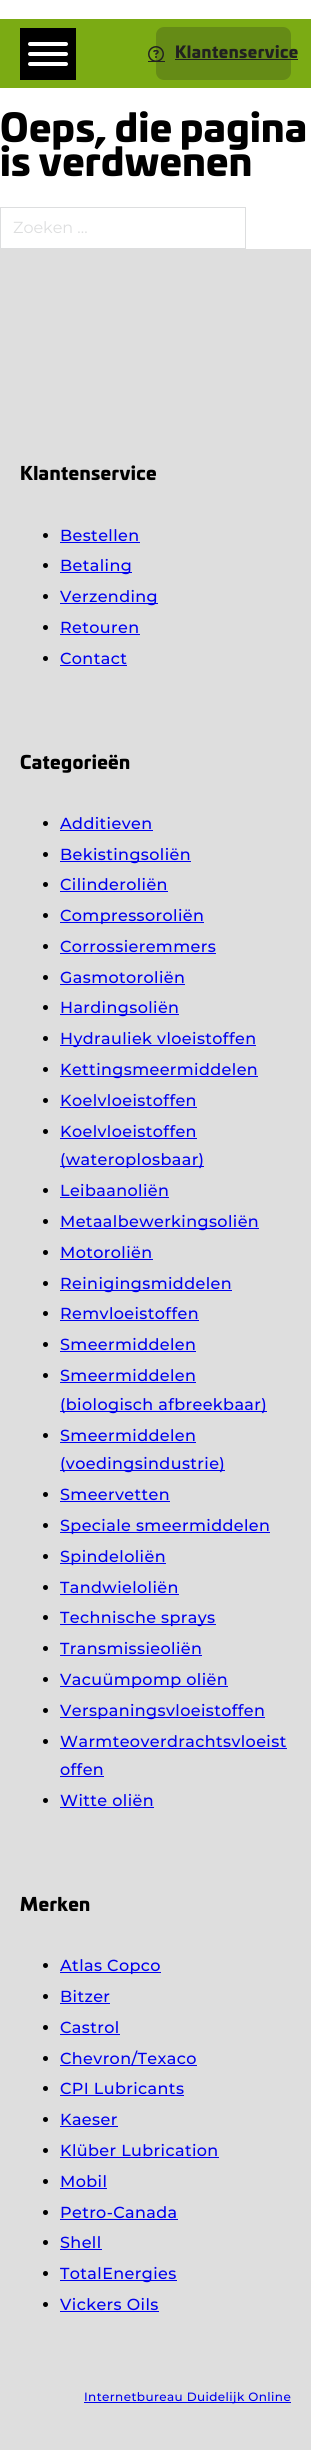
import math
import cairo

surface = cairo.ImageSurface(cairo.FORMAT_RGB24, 311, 2450)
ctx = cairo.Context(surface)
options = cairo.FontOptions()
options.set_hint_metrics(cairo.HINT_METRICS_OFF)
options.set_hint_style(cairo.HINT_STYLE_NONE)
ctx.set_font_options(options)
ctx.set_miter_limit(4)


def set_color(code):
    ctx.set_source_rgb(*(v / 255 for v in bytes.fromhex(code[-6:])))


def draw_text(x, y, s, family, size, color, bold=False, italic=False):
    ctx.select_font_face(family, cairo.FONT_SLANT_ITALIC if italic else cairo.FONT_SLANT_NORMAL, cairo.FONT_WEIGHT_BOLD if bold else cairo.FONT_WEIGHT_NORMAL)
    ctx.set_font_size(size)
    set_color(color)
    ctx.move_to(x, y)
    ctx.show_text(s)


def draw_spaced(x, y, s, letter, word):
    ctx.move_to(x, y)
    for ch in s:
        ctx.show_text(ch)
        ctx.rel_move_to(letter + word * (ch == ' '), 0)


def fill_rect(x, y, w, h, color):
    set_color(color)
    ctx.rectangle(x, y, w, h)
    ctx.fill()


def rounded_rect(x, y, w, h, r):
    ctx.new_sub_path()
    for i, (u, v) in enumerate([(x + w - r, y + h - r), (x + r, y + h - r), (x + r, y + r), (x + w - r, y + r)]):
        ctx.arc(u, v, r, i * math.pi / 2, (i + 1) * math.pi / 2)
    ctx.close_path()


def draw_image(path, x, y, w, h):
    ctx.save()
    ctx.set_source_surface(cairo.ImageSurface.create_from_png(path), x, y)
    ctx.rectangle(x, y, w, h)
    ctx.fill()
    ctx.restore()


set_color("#ffffff")
ctx.paint()
fill_rect(0, 19, 311, 69, "#7bab14")
fill_rect(20, 28, 56, 52, "#000000")
set_color("#ffffff")
rounded_rect(28, 52, 40, 4, 2)
ctx.fill()
rounded_rect(28, 42, 40, 4, 2)
ctx.fill()
rounded_rect(28, 62, 40, 4, 2)
ctx.fill()
set_color("#658b16")
rounded_rect(156, 27, 135, 53, 8)
ctx.fill()
draw_image("assets/img1.png", 148, 46, 16, 15)
fill_rect(148, 61, 17, 1, "#212121")
ctx.select_font_face("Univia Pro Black")
ctx.set_font_size(16)
draw_spaced(175, 58, "Klantenservice", 0.5, 0)
fill_rect(175, 59, 123, 1, "#212121")
ctx.set_font_size(38)
set_color("#000000")
draw_spaced(0, 142, "Oeps, die pagina", 0.4, 0)
draw_spaced(0, 176, "is verdwenen", 0.4, 0)
ctx.rectangle(0.5, 207.5, 245, 41)
set_color("#dddedf")
ctx.set_line_width(1)
ctx.stroke()
draw_text(13, 233, "Zoeken ...", "Montserrat", 16, "#dddedf")
fill_rect(0, 249, 311, 2201, "#dedede")
ctx.select_font_face("Univia Pro Black")
ctx.set_font_size(18)
set_color("#000000")
draw_spaced(20, 480, "Klantenservice", 0.4, 0)
ctx.new_path()
ctx.arc(45.5, 535.5, 2.5, 0, 2 * math.pi)
ctx.fill()
ctx.select_font_face("Montserrat Medium")
ctx.set_font_size(16)
set_color("#0000ee")
draw_spaced(60, 541, "Bestellen", 0.4, 0)
fill_rect(60, 542, 80, 1, "#0000ee")
set_color("#000000")
ctx.new_path()
ctx.arc(45.5, 565.5, 2.5, 0, 2 * math.pi)
ctx.fill()
fill_rect(60, 572, 72, 1, "#0000ee")
draw_spaced(60, 571, "Betaling", 0.4, 0)
set_color("#000000")
ctx.new_path()
ctx.arc(45.5, 596.5, 2.5, 0, 2 * math.pi)
ctx.fill()
fill_rect(60, 603, 98, 1, "#0000ee")
draw_spaced(60, 602, "Verzending", 0.4, 0)
set_color("#000000")
ctx.new_path()
ctx.arc(45.5, 627.5, 2.5, 0, 2 * math.pi)
ctx.fill()
set_color("#0000ee")
draw_spaced(60, 633, "Retouren", 0.4, 0)
fill_rect(60, 634, 80, 1, "#0000ee")
set_color("#000000")
ctx.new_path()
ctx.arc(45.5, 658.5, 2.5, 0, 2 * math.pi)
ctx.fill()
set_color("#0000ee")
draw_spaced(60, 664, "Contact", 0.4, 0)
fill_rect(60, 665, 67, 1, "#0000ee")
ctx.select_font_face("Univia Pro Black")
ctx.set_font_size(18)
set_color("#000000")
draw_spaced(20, 769, "Categorieën", 0.4, 0)
ctx.new_path()
ctx.arc(45.5, 823.5, 2.5, 0, 2 * math.pi)
ctx.fill()
ctx.select_font_face("Montserrat Medium")
ctx.set_font_size(16)
set_color("#0000ee")
draw_spaced(60, 829, "Additieven", 0.4, 0)
fill_rect(60, 830, 93, 1, "#0000ee")
set_color("#000000")
ctx.new_path()
ctx.arc(45.5, 854.5, 2.5, 0, 2 * math.pi)
ctx.fill()
fill_rect(60, 861, 131, 1, "#0000ee")
draw_spaced(60, 860, "Bekistingsoliën", 0.4, 0)
set_color("#000000")
ctx.new_path()
ctx.arc(45.5, 884.5, 2.5, 0, 2 * math.pi)
ctx.fill()
set_color("#0000ee")
draw_spaced(60, 890, "Cilinderoliën", 0.4, 0)
fill_rect(60, 891, 108, 1, "#0000ee")
set_color("#000000")
ctx.new_path()
ctx.arc(45.5, 915.5, 2.5, 0, 2 * math.pi)
ctx.fill()
fill_rect(60, 922, 144, 1, "#0000ee")
draw_spaced(60, 921, "Compressoroliën", 0.4, 0)
set_color("#000000")
ctx.new_path()
ctx.arc(45.5, 946.5, 2.5, 0, 2 * math.pi)
ctx.fill()
set_color("#0000ee")
draw_spaced(60, 952, "Corrossieremmers", 0.4, 0)
fill_rect(60, 953, 156, 1, "#0000ee")
set_color("#000000")
ctx.new_path()
ctx.arc(45.5, 977.5, 2.5, 0, 2 * math.pi)
ctx.fill()
set_color("#0000ee")
draw_spaced(60, 983, "Gasmotoroliën", 0.4, 0)
fill_rect(60, 984, 125, 1, "#0000ee")
set_color("#000000")
ctx.new_path()
ctx.arc(45.5, 1007.5, 2.5, 0, 2 * math.pi)
ctx.fill()
fill_rect(60, 1014, 119, 1, "#0000ee")
draw_spaced(60, 1013, "Hardingsoliën", 0.4, 0)
set_color("#000000")
ctx.new_path()
ctx.arc(45.5, 1038.5, 2.5, 0, 2 * math.pi)
ctx.fill()
fill_rect(60, 1045, 196, 1, "#0000ee")
draw_spaced(60, 1044, "Hydrauliek vloeistoffen", 0.4, 0)
set_color("#000000")
ctx.new_path()
ctx.arc(45.5, 1069.5, 2.5, 0, 2 * math.pi)
ctx.fill()
fill_rect(60, 1076, 198, 1, "#0000ee")
draw_spaced(60, 1075, "Kettingsmeermiddelen", 0.4, 0)
set_color("#000000")
ctx.new_path()
ctx.arc(45.5, 1100.5, 2.5, 0, 2 * math.pi)
ctx.fill()
set_color("#0000ee")
draw_spaced(60, 1106, "Koelvloeistoffen", 0.4, 0)
fill_rect(60, 1107, 137, 1, "#0000ee")
set_color("#000000")
ctx.new_path()
ctx.arc(45.5, 1131.5, 2.5, 0, 2 * math.pi)
ctx.fill()
set_color("#0000ee")
draw_spaced(60, 1137, "Koelvloeistoffen", 0.4, 0)
fill_rect(60, 1138, 137, 1, "#0000ee")
fill_rect(60, 1166, 144, 1, "#0000ee")
draw_spaced(60, 1165, "(wateroplosbaar)", 0.4, 0)
set_color("#000000")
ctx.new_path()
ctx.arc(45.5, 1190.5, 2.5, 0, 2 * math.pi)
ctx.fill()
set_color("#0000ee")
draw_spaced(60, 1196, "Leibaanoliën", 0.4, 0)
fill_rect(60, 1197, 109, 1, "#0000ee")
set_color("#000000")
ctx.new_path()
ctx.arc(45.5, 1221.5, 2.5, 0, 2 * math.pi)
ctx.fill()
fill_rect(60, 1228, 199, 1, "#0000ee")
draw_spaced(60, 1227, "Metaalbewerkingsoliën", 0.4, 0)
set_color("#000000")
ctx.new_path()
ctx.arc(45.5, 1252.5, 2.5, 0, 2 * math.pi)
ctx.fill()
set_color("#0000ee")
draw_spaced(60, 1258, "Motoroliën", 0.4, 0)
fill_rect(60, 1259, 93, 1, "#0000ee")
set_color("#000000")
ctx.new_path()
ctx.arc(45.5, 1283.5, 2.5, 0, 2 * math.pi)
ctx.fill()
fill_rect(60, 1290, 172, 1, "#0000ee")
draw_spaced(60, 1289, "Reinigingsmiddelen", 0.4, 0)
set_color("#000000")
ctx.new_path()
ctx.arc(45.5, 1313.5, 2.5, 0, 2 * math.pi)
ctx.fill()
set_color("#0000ee")
draw_spaced(60, 1319, "Remvloeistoffen", 0.4, 0)
fill_rect(60, 1320, 139, 1, "#0000ee")
set_color("#000000")
ctx.new_path()
ctx.arc(45.5, 1344.5, 2.5, 0, 2 * math.pi)
ctx.fill()
set_color("#0000ee")
draw_spaced(60, 1350, "Smeermiddelen", 0.4, 0)
fill_rect(60, 1351, 136, 1, "#0000ee")
set_color("#000000")
ctx.new_path()
ctx.arc(45.5, 1375.5, 2.5, 0, 2 * math.pi)
ctx.fill()
set_color("#0000ee")
draw_spaced(60, 1381, "Smeermiddelen", 0.4, 0)
fill_rect(60, 1382, 136, 1, "#0000ee")
fill_rect(60, 1411, 207, 1, "#0000ee")
draw_spaced(60, 1410, "(biologisch afbreekbaar)", 0.4, 0)
set_color("#000000")
ctx.new_path()
ctx.arc(45.5, 1435.5, 2.5, 0, 2 * math.pi)
ctx.fill()
set_color("#0000ee")
draw_spaced(60, 1441, "Smeermiddelen", 0.4, 0)
fill_rect(60, 1442, 136, 1, "#0000ee")
fill_rect(60, 1470, 165, 1, "#0000ee")
draw_spaced(60, 1469, "(voedingsindustrie)", 0.4, 0)
set_color("#000000")
ctx.new_path()
ctx.arc(45.5, 1494.5, 2.5, 0, 2 * math.pi)
ctx.fill()
set_color("#0000ee")
draw_spaced(60, 1500, "Smeervetten", 0.4, 0)
fill_rect(60, 1501, 110, 1, "#0000ee")
set_color("#000000")
ctx.new_path()
ctx.arc(45.5, 1525.5, 2.5, 0, 2 * math.pi)
ctx.fill()
fill_rect(60, 1532, 210, 1, "#0000ee")
draw_spaced(60, 1531, "Speciale smeermiddelen", 0.4, 0)
set_color("#000000")
ctx.new_path()
ctx.arc(45.5, 1556.5, 2.5, 0, 2 * math.pi)
ctx.fill()
fill_rect(60, 1563, 106, 1, "#0000ee")
draw_spaced(60, 1562, "Spindeloliën", 0.4, 0)
set_color("#000000")
ctx.new_path()
ctx.arc(45.5, 1587.5, 2.5, 0, 2 * math.pi)
ctx.fill()
set_color("#0000ee")
draw_spaced(60, 1593, "Tandwieloliën", 0.4, 0)
fill_rect(60, 1594, 119, 1, "#0000ee")
set_color("#000000")
ctx.new_path()
ctx.arc(45.5, 1617.5, 2.5, 0, 2 * math.pi)
ctx.fill()
fill_rect(60, 1624, 156, 1, "#0000ee")
draw_spaced(60, 1623, "Technische sprays", 0.4, 0)
set_color("#000000")
ctx.new_path()
ctx.arc(45.5, 1648.5, 2.5, 0, 2 * math.pi)
ctx.fill()
set_color("#0000ee")
draw_spaced(60, 1654, "Transmissieoliën", 0.4, 0)
fill_rect(60, 1655, 142, 1, "#0000ee")
set_color("#000000")
ctx.new_path()
ctx.arc(45.5, 1679.5, 2.5, 0, 2 * math.pi)
ctx.fill()
fill_rect(60, 1686, 168, 1, "#0000ee")
draw_spaced(60, 1685, "Vacuümpomp oliën", 0.4, 0)
set_color("#000000")
ctx.new_path()
ctx.arc(45.5, 1710.5, 2.5, 0, 2 * math.pi)
ctx.fill()
fill_rect(60, 1717, 205, 1, "#0000ee")
draw_spaced(60, 1716, "Verspaningsvloeistoffen", 0.4, 0)
set_color("#000000")
ctx.new_path()
ctx.arc(45.5, 1741.5, 2.5, 0, 2 * math.pi)
ctx.fill()
set_color("#0000ee")
draw_spaced(60, 1747, "Warmteoverdrachtsvloeist", 0.4, 0)
fill_rect(60, 1748, 227, 1, "#0000ee")
draw_spaced(60, 1775, "offen", 0.4, 0)
fill_rect(60, 1776, 44, 1, "#0000ee")
set_color("#000000")
ctx.new_path()
ctx.arc(45.5, 1800.5, 2.5, 0, 2 * math.pi)
ctx.fill()
set_color("#0000ee")
draw_spaced(60, 1806, "Witte oliën", 0.4, 0)
fill_rect(60, 1807, 94, 1, "#0000ee")
ctx.select_font_face("Univia Pro Black")
ctx.set_font_size(18)
set_color("#000000")
draw_spaced(20, 1911, "Merken", 0.4, 0)
ctx.new_path()
ctx.arc(45.5, 1965.5, 2.5, 0, 2 * math.pi)
ctx.fill()
fill_rect(60, 1972, 101, 1, "#0000ee")
ctx.select_font_face("Montserrat Medium")
ctx.set_font_size(16)
draw_spaced(60, 1971, "Atlas Copco", 0.4, 0)
set_color("#000000")
ctx.new_path()
ctx.arc(45.5, 1996.5, 2.5, 0, 2 * math.pi)
ctx.fill()
set_color("#0000ee")
draw_spaced(60, 2002, "Bitzer", 0.4, 0)
fill_rect(60, 2003, 50, 1, "#0000ee")
set_color("#000000")
ctx.new_path()
ctx.arc(45.5, 2027.5, 2.5, 0, 2 * math.pi)
ctx.fill()
set_color("#0000ee")
draw_spaced(60, 2033, "Castrol", 0.4, 0)
fill_rect(60, 2034, 60, 1, "#0000ee")
set_color("#000000")
ctx.new_path()
ctx.arc(45.5, 2058.5, 2.5, 0, 2 * math.pi)
ctx.fill()
fill_rect(60, 2065, 137, 1, "#0000ee")
draw_spaced(60, 2064, "Chevron/Texaco", 0.4, 0)
set_color("#000000")
ctx.new_path()
ctx.arc(45.5, 2088.5, 2.5, 0, 2 * math.pi)
ctx.fill()
set_color("#0000ee")
draw_spaced(60, 2094, "CPI Lubricants", 0.4, 0)
fill_rect(60, 2095, 124, 1, "#0000ee")
set_color("#000000")
ctx.new_path()
ctx.arc(45.5, 2119.5, 2.5, 0, 2 * math.pi)
ctx.fill()
set_color("#0000ee")
draw_spaced(60, 2125, "Kaeser", 0.4, 0)
fill_rect(60, 2126, 58, 1, "#0000ee")
set_color("#000000")
ctx.new_path()
ctx.arc(45.5, 2150.5, 2.5, 0, 2 * math.pi)
ctx.fill()
set_color("#0000ee")
draw_spaced(60, 2156, "Klüber Lubrication", 0.4, 0)
fill_rect(60, 2157, 159, 1, "#0000ee")
set_color("#000000")
ctx.new_path()
ctx.arc(45.5, 2181.5, 2.5, 0, 2 * math.pi)
ctx.fill()
set_color("#0000ee")
draw_spaced(60, 2187, "Mobil", 0.4, 0)
fill_rect(60, 2188, 47, 1, "#0000ee")
set_color("#000000")
ctx.new_path()
ctx.arc(45.5, 2212.5, 2.5, 0, 2 * math.pi)
ctx.fill()
set_color("#0000ee")
draw_spaced(60, 2218, "Petro-Canada", 0.4, 0)
fill_rect(60, 2219, 118, 1, "#0000ee")
set_color("#000000")
ctx.new_path()
ctx.arc(45.5, 2242.5, 2.5, 0, 2 * math.pi)
ctx.fill()
set_color("#0000ee")
draw_spaced(60, 2248, "Shell", 0.4, 0)
fill_rect(60, 2249, 42, 1, "#0000ee")
set_color("#000000")
ctx.new_path()
ctx.arc(45.5, 2273.5, 2.5, 0, 2 * math.pi)
ctx.fill()
fill_rect(60, 2280, 117, 1, "#0000ee")
draw_spaced(60, 2279, "TotalEnergies", 0.4, 0)
set_color("#000000")
ctx.new_path()
ctx.arc(45.5, 2304.5, 2.5, 0, 2 * math.pi)
ctx.fill()
set_color("#0000ee")
draw_spaced(60, 2310, "Vickers Oils", 0.4, 0)
fill_rect(60, 2311, 99, 1, "#0000ee")
fill_rect(84, 2402, 207, 1, "#0000ee")
ctx.set_font_size(12)
draw_spaced(84, 2401, "Internetbureau Duidelijk Online", 0.4, 0)
surface.write_to_png("output.png")
